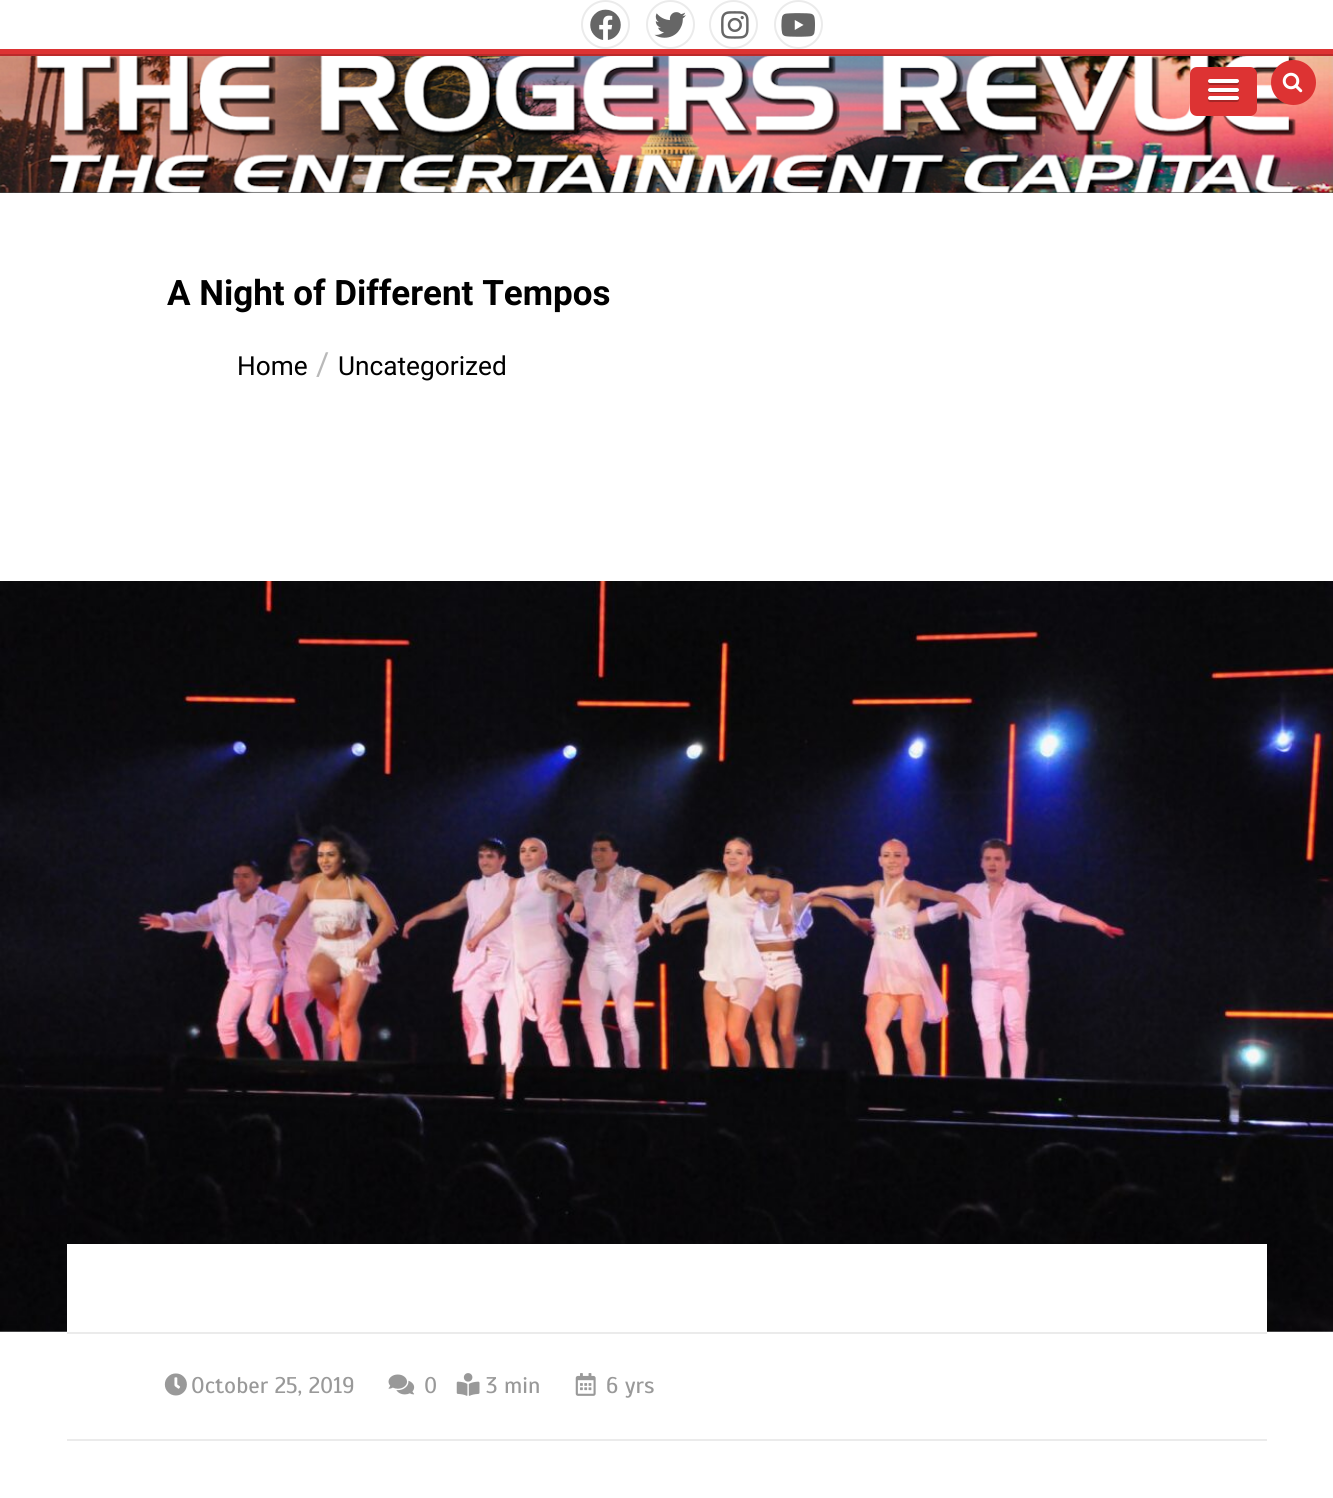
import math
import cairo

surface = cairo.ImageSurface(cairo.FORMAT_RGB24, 1333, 1498)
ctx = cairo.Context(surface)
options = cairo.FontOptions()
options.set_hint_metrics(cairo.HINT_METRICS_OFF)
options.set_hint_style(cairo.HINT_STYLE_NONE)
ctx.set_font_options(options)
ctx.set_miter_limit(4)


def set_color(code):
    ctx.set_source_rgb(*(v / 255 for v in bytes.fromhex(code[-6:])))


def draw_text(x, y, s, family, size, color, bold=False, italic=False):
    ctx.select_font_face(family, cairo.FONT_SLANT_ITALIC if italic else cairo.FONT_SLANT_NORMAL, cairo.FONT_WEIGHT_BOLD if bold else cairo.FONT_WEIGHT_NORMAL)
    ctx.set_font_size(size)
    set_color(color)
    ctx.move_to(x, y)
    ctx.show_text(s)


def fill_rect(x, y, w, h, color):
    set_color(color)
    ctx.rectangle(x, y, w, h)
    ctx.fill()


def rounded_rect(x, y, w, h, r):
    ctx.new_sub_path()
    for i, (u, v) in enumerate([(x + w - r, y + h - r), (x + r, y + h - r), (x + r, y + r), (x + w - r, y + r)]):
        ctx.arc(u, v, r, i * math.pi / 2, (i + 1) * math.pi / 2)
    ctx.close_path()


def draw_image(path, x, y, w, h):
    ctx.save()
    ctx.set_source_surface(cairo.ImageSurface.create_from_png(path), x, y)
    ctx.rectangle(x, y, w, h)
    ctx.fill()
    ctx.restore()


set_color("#ffffff")
ctx.paint()
ctx.arc(605.5, 24.5, 23.5, 0, 2 * math.pi)
set_color("#ebebeb")
ctx.stroke()
draw_image("assets/img1.png", 590, 9, 31, 31)
ctx.arc(670.5, 24.5, 23.5, 0, 2 * math.pi)
ctx.stroke()
draw_image("assets/img2.png", 654, 12, 32, 26)
ctx.arc(733.5, 24.5, 23.5, 0, 2 * math.pi)
ctx.stroke()
draw_image("assets/img3.png", 721, 11, 28, 28)
ctx.arc(798.5, 24.5, 23.5, 0, 2 * math.pi)
ctx.stroke()
draw_image("assets/img4.png", 781, 13, 34, 24)
fill_rect(0, 192, 1333, 1, "#494949")
draw_image("assets/img6.png", 0, 56, 1333, 137)
set_color("#dd3333")
ctx.arc(1293.5, 82.5, 22.5, 0, 2 * math.pi)
ctx.fill()
draw_image("assets/img5.png", 1282, 72, 21, 21)
fill_rect(0, 54, 1333, 2, "#ba2a2a")
fill_rect(0, 49, 1333, 5, "#dd3333")
rounded_rect(1190, 67, 67, 49, 7)
ctx.fill()
set_color("#a62626")
ctx.new_path()
ctx.move_to(1208.5, 82)
ctx.curve_to(1206, 86, 1214, 85, 1214.5, 85)
ctx.line_to(1232.5, 85)
ctx.curve_to(1233.5, 85, 1238.5, 86, 1239, 83.5)
ctx.curve_to(1239, 83, 1239, 82, 1238.5, 81.5)
ctx.line_to(1237.5, 82)
ctx.curve_to(1235, 82.5, 1209, 82.5, 1208.5, 82)
ctx.close_path()
ctx.fill()
set_color("#ffffff")
rounded_rect(1208, 79, 31, 4, 2)
ctx.fill()
set_color("#a62626")
ctx.new_path()
ctx.move_to(1208, 90.5)
ctx.curve_to(1207, 94, 1213.5, 93, 1214.5, 93)
ctx.line_to(1232.5, 93)
ctx.curve_to(1233.5, 93, 1240.5, 94, 1239, 90)
ctx.line_to(1237.5, 91)
ctx.line_to(1209, 91)
ctx.close_path()
ctx.fill()
set_color("#ffffff")
rounded_rect(1208, 88, 31, 4, 2)
ctx.fill()
set_color("#a62626")
ctx.new_path()
ctx.move_to(1208, 99.5)
ctx.curve_to(1207, 103, 1213.5, 102, 1214.5, 102)
ctx.line_to(1232.5, 102)
ctx.curve_to(1233, 102, 1241, 103, 1238.5, 99)
ctx.line_to(1237.5, 99.5)
ctx.line_to(1209, 99.5)
ctx.close_path()
ctx.fill()
set_color("#ffffff")
rounded_rect(1208, 96, 31, 4, 2)
ctx.fill()
draw_text(167, 305, "A Night of Different Tempos", "Roboto", 35, "#000000", bold=True)
draw_text(237, 375, "Home", "Roboto", 26.25, "#000000")
draw_text(316, 375, "/", "Roboto", 32, "#b9b9b9")
draw_text(338, 375, "Uncategorized", "Roboto", 26.25, "#000000")
draw_image("assets/img7.png", 0, 581, 1333, 751)
fill_rect(67, 1244, 1200, 88, "#ffffff")
fill_rect(67, 1332, 1200, 2, "#ebebeb")
fill_rect(67, 1439, 1200, 2, "#ebebeb")
draw_image("assets/img8.png", 164, 1373, 23, 23)
draw_text(191, 1393, "October 25, 2019", "Scada", 22.75, "#999999")
draw_image("assets/img9.png", 388, 1374, 27, 21)
draw_text(424, 1393, "0", "Scada", 22.75, "#999999")
draw_image("assets/img10.png", 456, 1373, 24, 23)
draw_text(486, 1393, "3 min", "Scada", 22.75, "#999999")
draw_image("assets/img11.png", 575, 1373, 21, 23)
draw_text(606, 1393, "6 yrs", "Scada", 22.75, "#999999")
surface.write_to_png("output.png")
